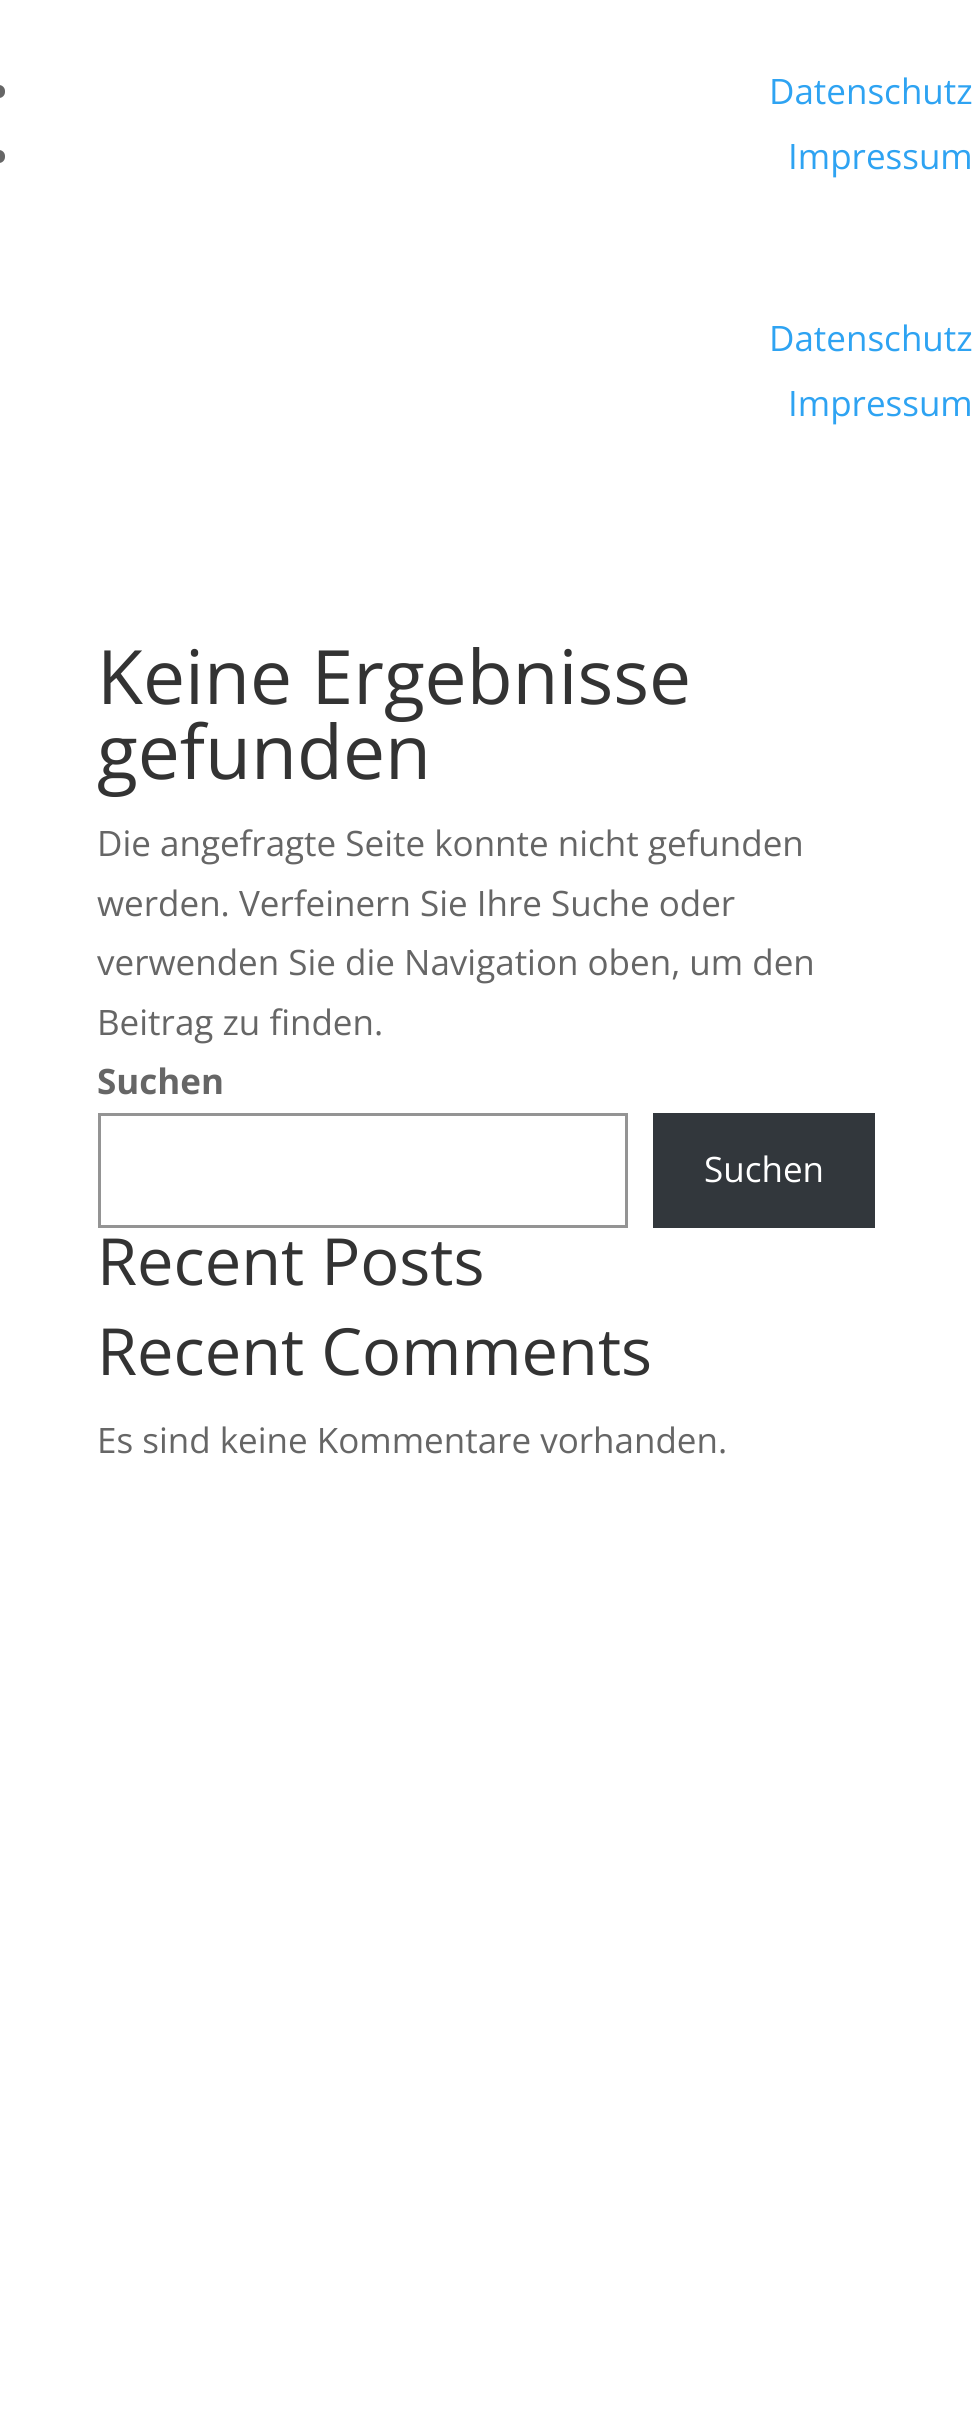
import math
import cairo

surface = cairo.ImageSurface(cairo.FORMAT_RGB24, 972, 2412)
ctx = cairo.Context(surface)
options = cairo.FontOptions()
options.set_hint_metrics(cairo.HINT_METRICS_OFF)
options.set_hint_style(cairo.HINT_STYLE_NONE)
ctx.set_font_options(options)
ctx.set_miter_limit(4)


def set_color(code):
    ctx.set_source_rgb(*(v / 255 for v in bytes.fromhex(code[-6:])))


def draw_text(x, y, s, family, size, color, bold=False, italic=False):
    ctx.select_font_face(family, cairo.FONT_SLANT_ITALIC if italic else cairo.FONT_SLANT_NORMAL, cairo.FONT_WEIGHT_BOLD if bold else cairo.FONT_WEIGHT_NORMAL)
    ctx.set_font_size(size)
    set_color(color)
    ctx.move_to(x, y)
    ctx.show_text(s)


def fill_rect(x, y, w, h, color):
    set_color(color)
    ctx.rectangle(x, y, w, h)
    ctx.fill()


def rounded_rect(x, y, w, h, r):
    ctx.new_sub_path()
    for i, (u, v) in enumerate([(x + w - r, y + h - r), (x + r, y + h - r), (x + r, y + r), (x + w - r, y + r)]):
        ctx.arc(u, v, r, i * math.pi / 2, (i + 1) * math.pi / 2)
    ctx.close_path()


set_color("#ffffff")
ctx.paint()
set_color("#666666")
rounded_rect(-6, 85, 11, 13, 6)
ctx.fill()
draw_text(769, 104, "Datenschutz", "Open Sans", 35, "#2ea3f2")
set_color("#666666")
rounded_rect(-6, 150, 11, 13, 6)
ctx.fill()
draw_text(788, 169, "Impressum", "Open Sans", 35, "#2ea3f2")
draw_text(769, 351, "Datenschutz", "Open Sans", 35, "#2ea3f2")
draw_text(788, 416, "Impressum", "Open Sans", 35, "#2ea3f2")
draw_text(97, 704, "Keine Ergebnisse", "Open Sans", 75, "#333333")
draw_text(97, 779, "gefunden", "Open Sans", 75, "#333333")
draw_text(97, 856, "Die angefragte Seite konnte nicht gefunden", "Open Sans", 35, "#666666")
draw_text(97, 916, "werden. Verfeinern Sie Ihre Suche oder", "Open Sans", 35, "#666666")
draw_text(97, 975, "verwenden Sie die Navigation oben, um den", "Open Sans", 35, "#666666")
draw_text(97, 1035, "Beitrag zu finden.", "Open Sans", 35, "#666666")
draw_text(97, 1094, "Suchen", "Open Sans", 35, "#666666", bold=True)
ctx.rectangle(99.5, 1114.5, 527, 112)
set_color("#949494")
ctx.set_line_width(3)
ctx.stroke()
fill_rect(653, 1113, 222, 115, "#32373c")
draw_text(704, 1182, "Suchen", "Open Sans", 35, "#ffffff")
draw_text(97, 1285, "Recent Posts", "Open Sans", 65, "#333333")
draw_text(97, 1375, "Recent Comments", "Open Sans", 65, "#333333")
draw_text(97, 1453, "Es sind keine Kommentare vorhanden.", "Open Sans", 35, "#666666")
surface.write_to_png("output.png")
